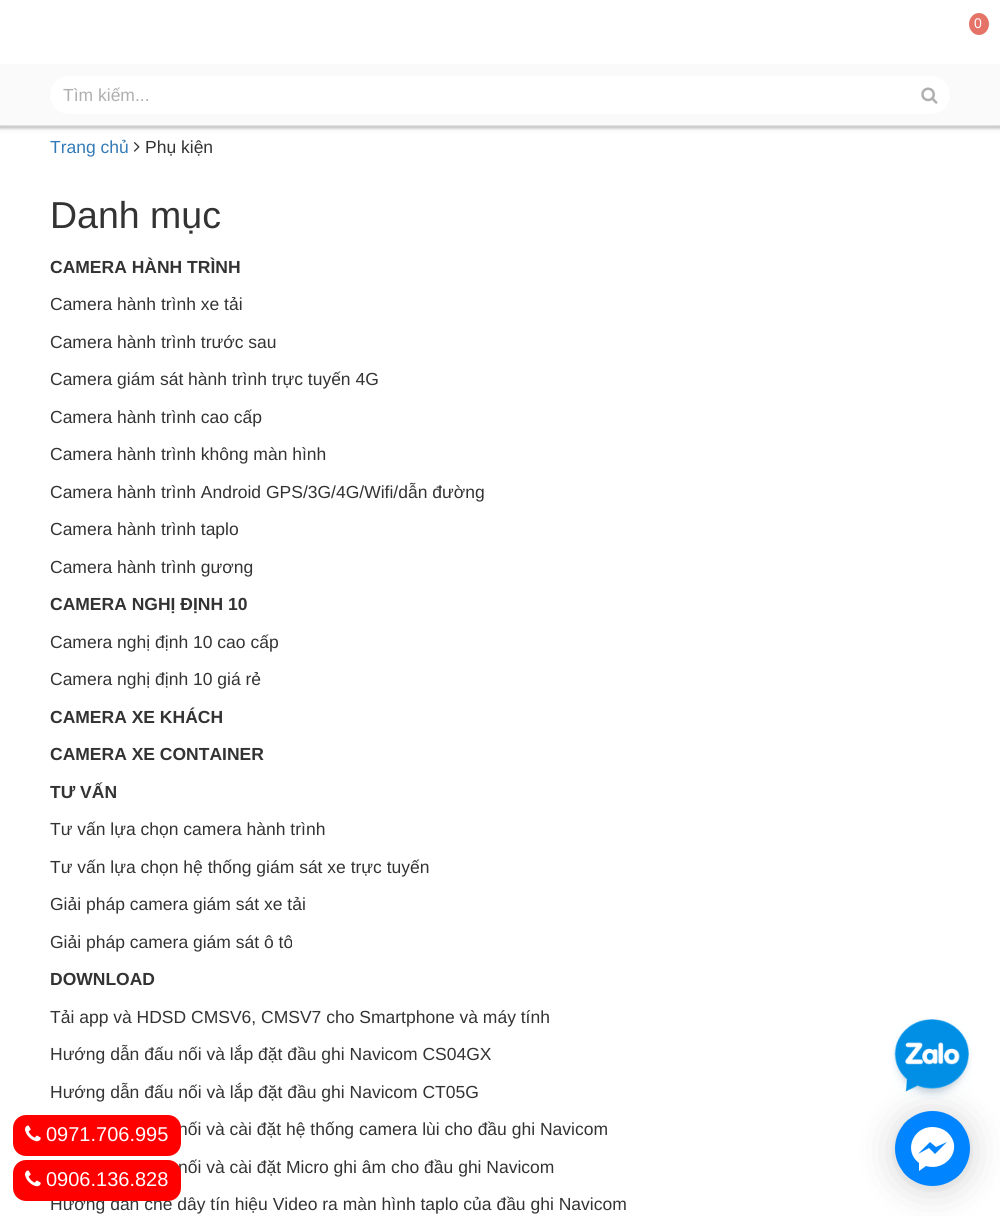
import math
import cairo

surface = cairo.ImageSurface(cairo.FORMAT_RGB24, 1000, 1216)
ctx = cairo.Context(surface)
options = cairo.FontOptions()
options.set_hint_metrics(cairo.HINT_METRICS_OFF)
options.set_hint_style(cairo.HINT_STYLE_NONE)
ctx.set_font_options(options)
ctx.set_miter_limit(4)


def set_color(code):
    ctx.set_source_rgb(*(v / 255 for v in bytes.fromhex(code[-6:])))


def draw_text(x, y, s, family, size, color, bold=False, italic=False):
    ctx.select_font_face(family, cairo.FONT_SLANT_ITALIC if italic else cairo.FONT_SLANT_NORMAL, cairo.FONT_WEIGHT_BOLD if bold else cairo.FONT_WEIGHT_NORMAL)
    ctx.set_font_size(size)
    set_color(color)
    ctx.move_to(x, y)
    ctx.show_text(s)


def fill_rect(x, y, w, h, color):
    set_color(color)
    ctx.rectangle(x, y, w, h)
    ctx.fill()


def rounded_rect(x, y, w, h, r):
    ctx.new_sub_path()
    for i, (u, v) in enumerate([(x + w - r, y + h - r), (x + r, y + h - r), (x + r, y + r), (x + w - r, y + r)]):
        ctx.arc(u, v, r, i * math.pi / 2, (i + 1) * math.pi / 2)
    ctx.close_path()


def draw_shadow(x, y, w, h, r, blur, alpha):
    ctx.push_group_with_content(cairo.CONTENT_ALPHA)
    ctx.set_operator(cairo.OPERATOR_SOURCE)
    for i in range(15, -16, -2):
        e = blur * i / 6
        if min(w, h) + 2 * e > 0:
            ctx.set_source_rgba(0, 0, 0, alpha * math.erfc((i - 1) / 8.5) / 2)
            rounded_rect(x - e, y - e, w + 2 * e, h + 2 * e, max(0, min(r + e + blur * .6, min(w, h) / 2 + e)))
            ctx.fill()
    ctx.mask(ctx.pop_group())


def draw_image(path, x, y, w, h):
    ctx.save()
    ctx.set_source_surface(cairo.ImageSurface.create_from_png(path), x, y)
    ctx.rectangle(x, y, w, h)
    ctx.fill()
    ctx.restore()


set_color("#ffffff")
ctx.paint()
fill_rect(0, 126, 1000, 2, "#cecece")
gradient = cairo.LinearGradient(500, 0, 500, 126)
gradient.add_color_stop_rgba(0.5, 1, 1, 1, 1)
gradient.add_color_stop_rgba(0.51, 0.98, 0.98, 0.98, 1)
ctx.set_source(gradient)
ctx.rectangle(1, 64, 998, 61)
ctx.fill()
gradient = cairo.LinearGradient(500, 0, 500, 126)
gradient.add_color_stop_rgba(0.5, 1, 1, 1, 1)
gradient.add_color_stop_rgba(0.51, 0.984, 0.984, 0.984, 1)
ctx.set_source(gradient)
ctx.rectangle(0, 64, 1, 62)
ctx.fill()
ctx.rectangle(999, 64, 1, 62)
ctx.fill()
fill_rect(0, 125, 1000, 1, "#e1e1e1")
fill_rect(0, 125, 1, 1, "#e4e4e4")
fill_rect(999, 125, 1, 1, "#e4e4e4")
set_color("#e57368")
ctx.new_path()
ctx.move_to(979, 13)
ctx.curve_to(984.5, 13, 989, 18, 989, 24)
ctx.curve_to(989, 30, 984.5, 35, 979, 35)
ctx.curve_to(973.5, 35, 969, 30, 969, 24)
ctx.curve_to(969, 18, 973.5, 13, 979, 13)
ctx.close_path()
ctx.fill()
draw_text(974, 28, "0", "Liberation Sans", 14, "#ffffff")
rounded_rect(50, 76, 900, 38, 19)
ctx.fill()
draw_text(63, 101, "Tìm kiếm...", "Liberation Sans", 17.5, "#afafaf")
draw_image("assets/img1.png", 921, 87, 17, 17)
fill_rect(0, 131, 1000, 2, "#fcfcfc")
fill_rect(0, 130, 1000, 1, "#f8f8f8")
fill_rect(0, 129, 1000, 1, "#eeeeee")
fill_rect(0, 128, 1000, 1, "#dfdfdf")
draw_text(50, 153, "Trang chủ", "Liberation Sans", 17.5, "#337ab7")
draw_image("assets/img2.png", 133, 142, 7, 10)
draw_text(145, 153, "Phụ kiện", "Liberation Sans", 17.5, "#333333")
draw_text(50, 228, "Danh mục", "Liberation Sans", 37.5, "#333333")
draw_text(50, 273, "CAMERA HÀNH TRÌNH", "Liberation Sans", 17.5, "#333333", bold=True)
draw_text(50, 310, "Camera hành trình xe tải", "Liberation Sans", 17.5, "#333333")
draw_text(50, 348, "Camera hành trình trước sau", "Liberation Sans", 17.5, "#333333")
draw_text(50, 385, "Camera giám sát hành trình trực tuyến 4G", "Liberation Sans", 17.5, "#333333")
draw_text(50, 423, "Camera hành trình cao cấp", "Liberation Sans", 17.5, "#333333")
draw_text(50, 460, "Camera hành trình không màn hình", "Liberation Sans", 17.5, "#333333")
draw_text(50, 498, "Camera hành trình Android GPS/3G/4G/Wifi/dẫn đường", "Liberation Sans", 17.5, "#333333")
draw_text(50, 535, "Camera hành trình taplo", "Liberation Sans", 17.5, "#333333")
draw_text(50, 573, "Camera hành trình gương", "Liberation Sans", 17.5, "#333333")
draw_text(50, 610, "CAMERA NGHỊ ĐỊNH 10", "Liberation Sans", 17.5, "#333333", bold=True)
draw_text(50, 648, "Camera nghị định 10 cao cấp", "Liberation Sans", 17.5, "#333333")
draw_text(50, 685, "Camera nghị định 10 giá rẻ", "Liberation Sans", 17.5, "#333333")
draw_text(50, 723, "CAMERA XE KHÁCH", "Liberation Sans", 17.5, "#333333", bold=True)
draw_text(50, 760, "CAMERA XE CONTAINER", "Liberation Sans", 17.5, "#333333", bold=True)
draw_text(50, 798, "TƯ VẤN", "Liberation Sans", 17.5, "#333333", bold=True)
draw_text(50, 835, "Tư vấn lựa chọn camera hành trình", "Liberation Sans", 17.5, "#333333")
draw_text(50, 873, "Tư vấn lựa chọn hệ thống giám sát xe trực tuyến", "Liberation Sans", 17.5, "#333333")
draw_text(50, 910, "Giải pháp camera giám sát xe tải", "Liberation Sans", 17.5, "#333333")
draw_text(50, 948, "Giải pháp camera giám sát ô tô", "Liberation Sans", 17.5, "#333333")
draw_text(50, 985, "DOWNLOAD", "Liberation Sans", 17.5, "#333333", bold=True)
draw_text(50, 1023, "Tải app và HDSD CMSV6, CMSV7 cho Smartphone và máy tính", "Liberation Sans", 17.5, "#333333")
draw_text(50, 1060, "Hướng dẫn đấu nối và lắp đặt đầu ghi Navicom CS04GX", "Liberation Sans", 17.5, "#333333")
draw_text(50, 1098, "Hướng dẫn đấu nối và lắp đặt đầu ghi Navicom CT05G", "Liberation Sans", 17.5, "#333333")
draw_text(178, 1135, "nối và cài đặt hệ thống camera lùi cho đầu ghi Navicom", "Liberation Sans", 17.5, "#333333")
draw_text(178, 1173, "nối và cài đặt Micro ghi âm cho đầu ghi Navicom", "Liberation Sans", 17.5, "#333333")
draw_text(50, 1210, "Hướng dẫn chế dây tín hiệu Video ra màn hình taplo của đầu ghi Navicom", "Liberation Sans", 17.5, "#333333")
set_color("#000000")
draw_shadow(895, 1114, 75, 75, 37.5, 20, 0.16)
draw_image("assets/img3.png", 892, 1019, 80, 80)
set_color("#ff0000")
rounded_rect(13, 1115, 168, 41, 13)
ctx.fill()
draw_image("assets/img4.png", 25, 1125, 16, 17)
draw_text(46, 1141, "0971.706.995", "Liberation Sans", 20, "#ffffff")
set_color("#000000")
draw_shadow(895, 1113, 75, 75, 37.5, 4, 0.06)
set_color("#0084ff")
ctx.arc(932.5, 1148.5, 37.5, 0, 2 * math.pi)
ctx.fill()
ctx.save()
rounded_rect(895, 1111, 75, 75, 37.5)
ctx.clip()
fill_rect(903, 1119, 60, 60, "#0084ff")
ctx.restore()
set_color("#ffffff")
ctx.new_path()
ctx.move_to(932, 1127)
ctx.curve_to(913, 1127, 903, 1151, 919, 1163)
ctx.line_to(919, 1171)
ctx.line_to(926, 1166)
ctx.curve_to(946, 1172, 964, 1149, 948, 1133)
ctx.curve_to(944, 1129, 938, 1127, 932, 1127)
ctx.close_path()
ctx.move_to(935, 1154)
ctx.line_to(929, 1148)
ctx.line_to(918, 1154)
ctx.line_to(930, 1142)
ctx.line_to(936, 1147)
ctx.line_to(947, 1142)
ctx.close_path()
ctx.fill()
set_color("#ff0000")
rounded_rect(13, 1160, 168, 41, 13)
ctx.fill()
draw_image("assets/img4.png", 25, 1170, 16, 17)
draw_text(46, 1186, "0906.136.828", "Liberation Sans", 20, "#ffffff")
surface.write_to_png("output.png")
